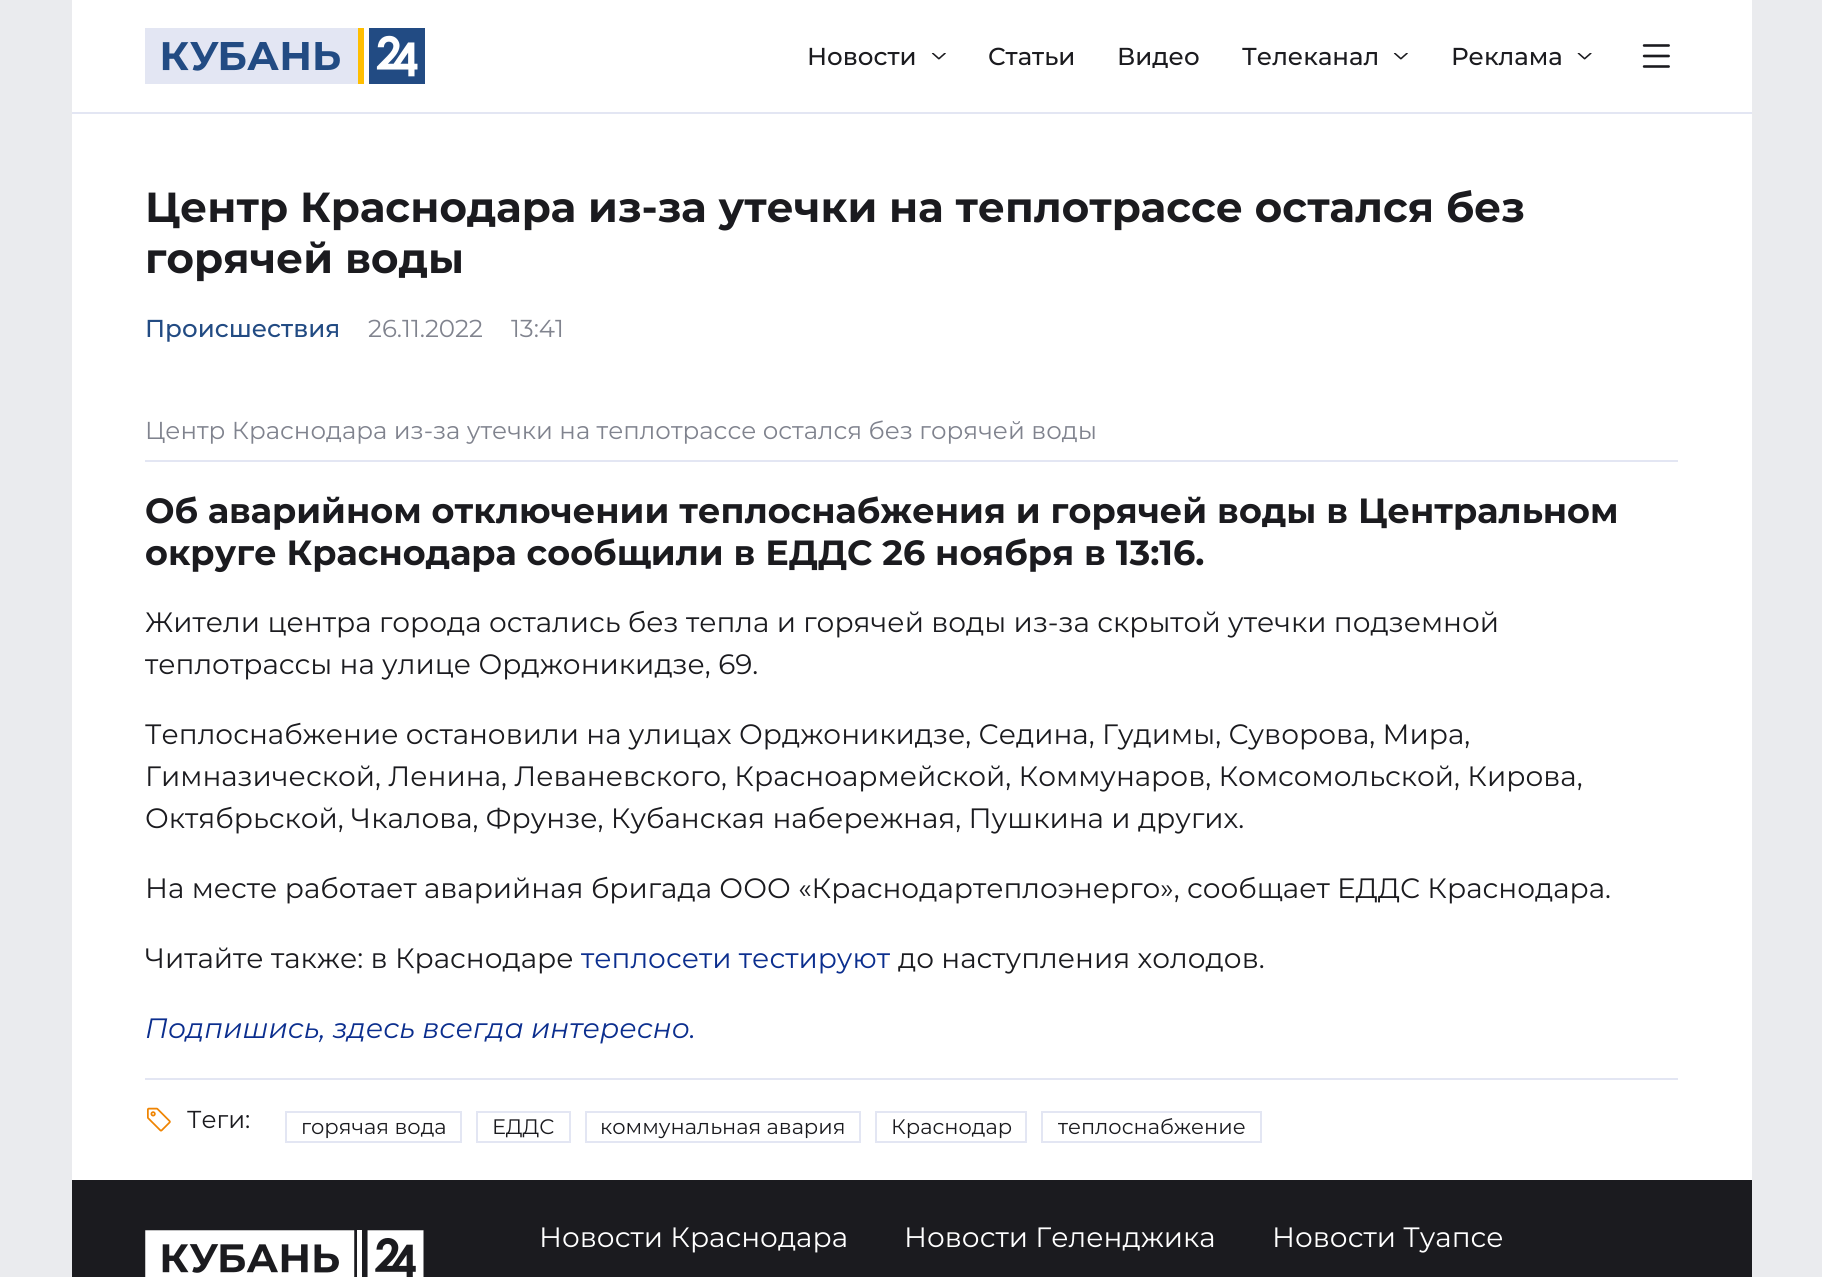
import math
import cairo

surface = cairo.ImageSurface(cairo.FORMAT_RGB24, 1822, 1277)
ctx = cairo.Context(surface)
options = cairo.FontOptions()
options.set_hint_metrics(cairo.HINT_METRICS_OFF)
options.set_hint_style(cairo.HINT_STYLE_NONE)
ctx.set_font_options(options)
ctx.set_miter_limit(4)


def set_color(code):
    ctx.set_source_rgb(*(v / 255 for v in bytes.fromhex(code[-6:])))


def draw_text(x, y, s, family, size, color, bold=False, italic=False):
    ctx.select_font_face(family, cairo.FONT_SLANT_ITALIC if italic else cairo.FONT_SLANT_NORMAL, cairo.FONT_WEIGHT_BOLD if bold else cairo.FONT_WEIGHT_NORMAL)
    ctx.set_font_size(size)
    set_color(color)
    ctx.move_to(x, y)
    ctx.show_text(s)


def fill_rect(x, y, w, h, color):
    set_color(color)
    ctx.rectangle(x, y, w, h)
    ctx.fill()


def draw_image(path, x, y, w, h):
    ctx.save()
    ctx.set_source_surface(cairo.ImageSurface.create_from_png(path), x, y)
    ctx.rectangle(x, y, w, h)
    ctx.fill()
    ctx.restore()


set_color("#eaebee")
ctx.paint()
fill_rect(72, 0, 1680, 112, "#ffffff")
fill_rect(72, 112, 1680, 2, "#e3e6f3")
draw_image("assets/img1.png", 145, 28, 280, 56)
draw_text(807, 65, "Новости", "Montserrat Medium", 24.5, "#1b1b1f")
draw_image("assets/img2.png", 931, 53, 15, 7)
draw_text(988, 65, "Статьи", "Montserrat Medium", 24.5, "#1b1b1f")
draw_text(1117, 65, "Видео", "Montserrat Medium", 24.5, "#1b1b1f")
draw_text(1242, 65, "Телеканал", "Montserrat Medium", 24.5, "#1b1b1f")
draw_image("assets/img2.png", 1393, 53, 15, 7)
draw_text(1451, 65, "Реклама", "Montserrat Medium", 24.5, "#1b1b1f")
draw_image("assets/img3.png", 1577, 53, 15, 7)
draw_image("assets/img4.png", 1642, 44, 28, 24)
fill_rect(72, 114, 1680, 1066, "#ffffff")
draw_text(145, 222, "Центр Краснодара из-за утечки на теплотрассе остался без", "Montserrat", 42, "#1b1b1f", bold=True)
draw_text(145, 273, "горячей воды", "Montserrat", 42, "#1b1b1f", bold=True)
draw_text(145, 337, "Происшествия", "Montserrat Medium", 24.5, "#224b83")
draw_text(368, 337, "26.11.2022", "Montserrat", 24.5, "#80838e")
draw_text(511, 337, "13:41", "Montserrat", 24.5, "#80838e")
fill_rect(145, 460, 1533, 2, "#e3e6f3")
draw_text(145, 439, "Центр Краснодара из-за утечки на теплотрассе остался без горячей воды", "Montserrat", 24.5, "#80838e")
draw_text(145, 523, "Об аварийном отключении теплоснабжения и горячей воды в Центральном", "Montserrat", 35, "#1b1b1f", bold=True)
draw_text(145, 565, "округе Краснодара сообщили в ЕДДС 26 ноября в 13:16.", "Montserrat", 35, "#1b1b1f", bold=True)
draw_text(145, 632, "Жители центра города остались без тепла и горячей воды из-за скрытой утечки подземной", "Montserrat", 28, "#1b1b1f")
draw_text(145, 674, "теплотрассы на улице Орджоникидзе, 69.", "Montserrat", 28, "#1b1b1f")
draw_text(145, 744, "Теплоснабжение остановили на улицах Орджоникидзе, Седина, Гудимы, Суворова, Мира,", "Montserrat", 28, "#1b1b1f")
draw_text(145, 786, "Гимназической, Ленина, Леваневского, Красноармейской, Коммунаров, Комсомольской, Кирова,", "Montserrat", 28, "#1b1b1f")
draw_text(145, 828, "Октябрьской, Чкалова, Фрунзе, Кубанская набережная, Пушкина и других.", "Montserrat", 28, "#1b1b1f")
draw_text(145, 898, "На месте работает аварийная бригада ООО «Краснодартеплоэнерго», сообщает ЕДДС Краснодара.", "Montserrat", 28, "#1b1b1f")
draw_text(145, 968, "Читайте также: в Краснодаре", "Montserrat", 28, "#1b1b1f")
draw_text(581, 968, "теплосети тестируют", "Montserrat", 28, "#0b2e8e")
draw_text(898, 968, "до наступления холодов.", "Montserrat", 28, "#1b1b1f")
draw_text(145, 1038, "Подпишись, здесь всегда интересно.", "Montserrat", 28, "#0b2e8e", italic=True)
fill_rect(145, 1078, 1533, 2, "#e3e6f3")
draw_image("assets/img5.png", 147, 1107, 24, 25)
draw_text(187, 1128, "Теги:", "Montserrat", 24.5, "#1b1b1f")
ctx.rectangle(286, 1112, 175, 30)
set_color("#e3e6f3")
ctx.stroke()
draw_text(301, 1134, "горячая вода", "Montserrat", 21, "#1b1b1f")
ctx.rectangle(477, 1112, 93, 30)
set_color("#e3e6f3")
ctx.stroke()
draw_text(492, 1134, "ЕДДС", "Montserrat", 21, "#1b1b1f")
ctx.rectangle(586, 1112, 274, 30)
set_color("#e3e6f3")
ctx.stroke()
draw_text(600, 1134, "коммунальная авария", "Montserrat", 21, "#1b1b1f")
ctx.rectangle(876, 1112, 150, 30)
set_color("#e3e6f3")
ctx.stroke()
draw_text(891, 1134, "Краснодар", "Montserrat", 21, "#1b1b1f")
ctx.rectangle(1042, 1112, 219, 30)
set_color("#e3e6f3")
ctx.stroke()
draw_text(1058, 1134, "теплоснабжение", "Montserrat", 21, "#1b1b1f")
fill_rect(72, 1180, 1680, 97, "#1b1b1f")
draw_image("assets/img6.png", 145, 1230, 279, 47)
draw_text(539, 1247, "Новости Краснодара", "Montserrat", 28, "#ffffff")
draw_text(904, 1247, "Новости Геленджика", "Montserrat", 28, "#ffffff")
draw_text(1272, 1247, "Новости Туапсе", "Montserrat", 28, "#ffffff")
surface.write_to_png("output.png")
